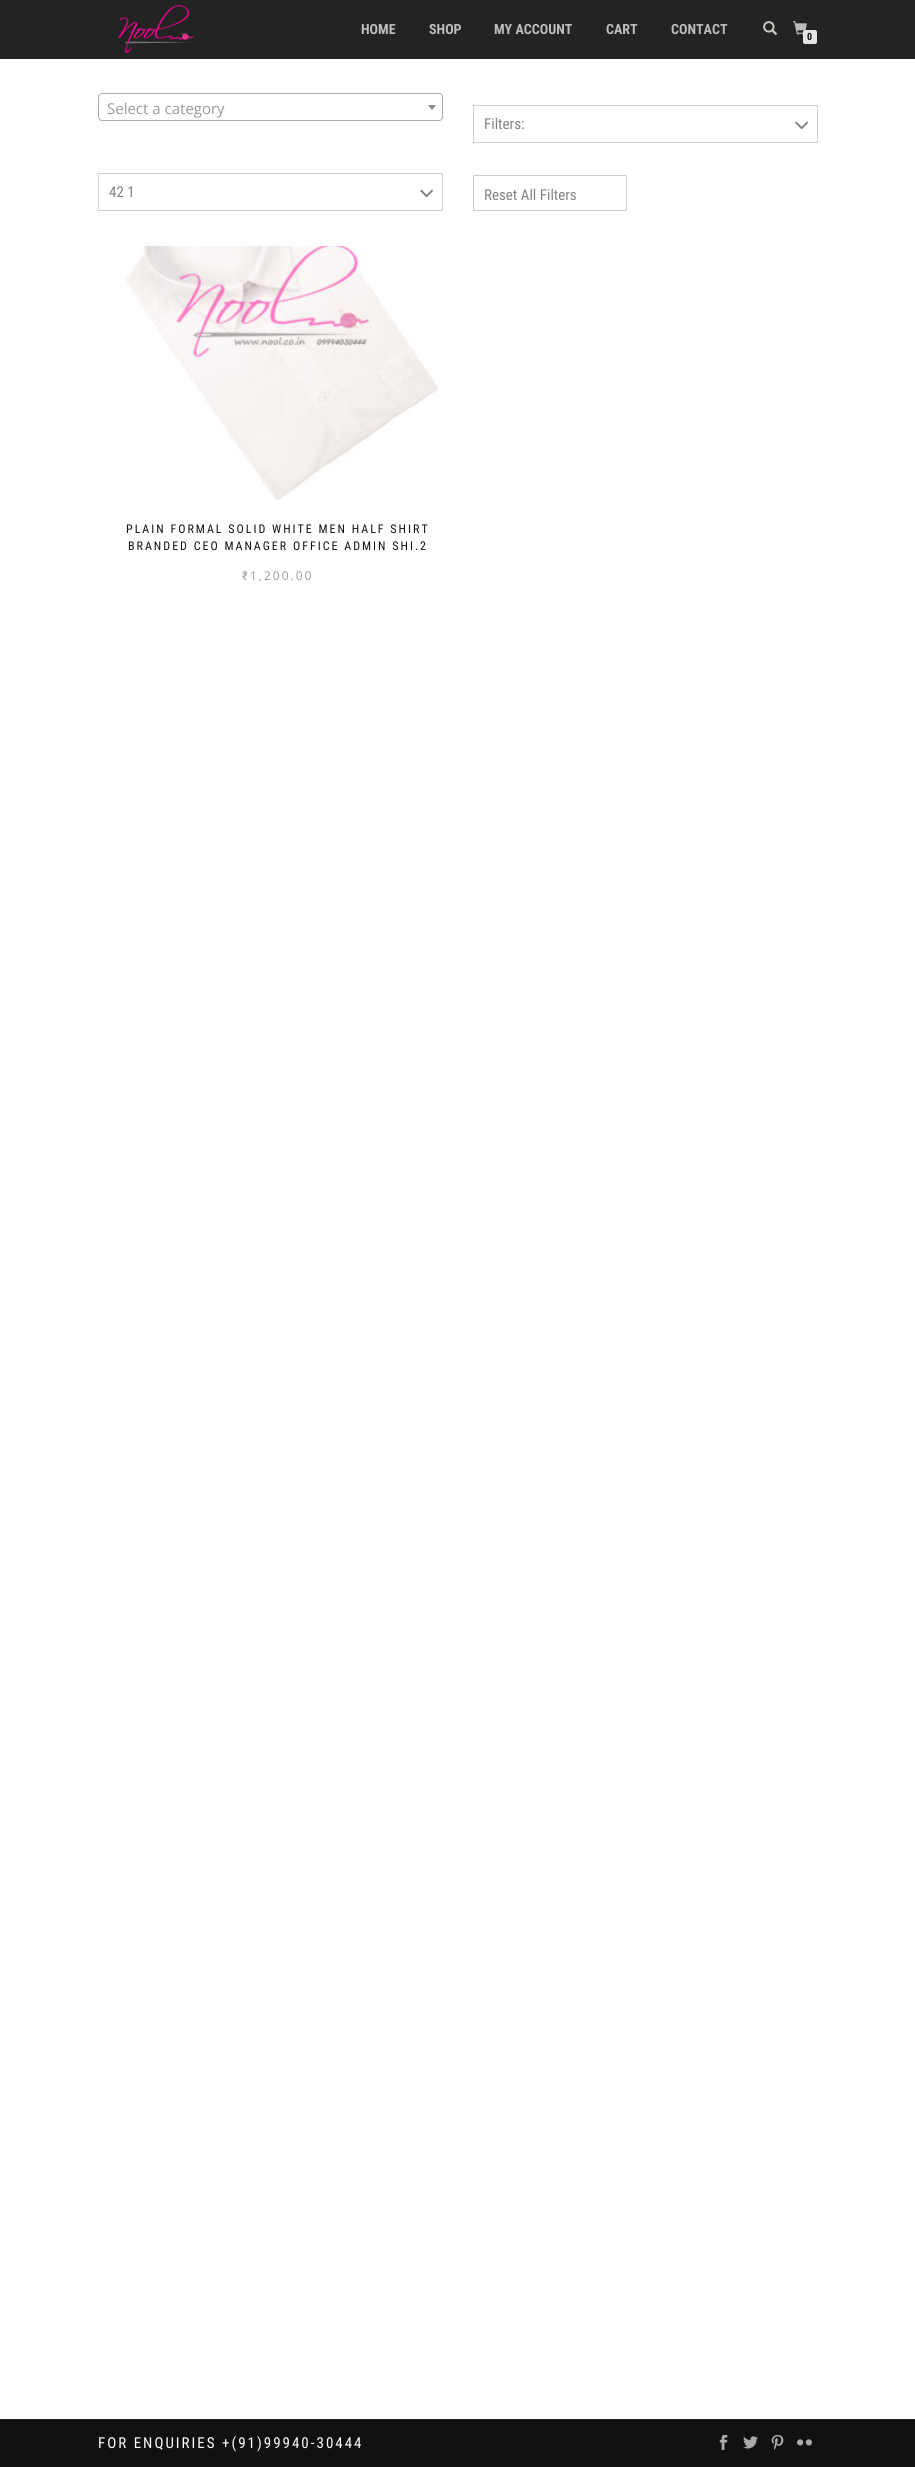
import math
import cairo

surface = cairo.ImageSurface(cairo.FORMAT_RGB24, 915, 2467)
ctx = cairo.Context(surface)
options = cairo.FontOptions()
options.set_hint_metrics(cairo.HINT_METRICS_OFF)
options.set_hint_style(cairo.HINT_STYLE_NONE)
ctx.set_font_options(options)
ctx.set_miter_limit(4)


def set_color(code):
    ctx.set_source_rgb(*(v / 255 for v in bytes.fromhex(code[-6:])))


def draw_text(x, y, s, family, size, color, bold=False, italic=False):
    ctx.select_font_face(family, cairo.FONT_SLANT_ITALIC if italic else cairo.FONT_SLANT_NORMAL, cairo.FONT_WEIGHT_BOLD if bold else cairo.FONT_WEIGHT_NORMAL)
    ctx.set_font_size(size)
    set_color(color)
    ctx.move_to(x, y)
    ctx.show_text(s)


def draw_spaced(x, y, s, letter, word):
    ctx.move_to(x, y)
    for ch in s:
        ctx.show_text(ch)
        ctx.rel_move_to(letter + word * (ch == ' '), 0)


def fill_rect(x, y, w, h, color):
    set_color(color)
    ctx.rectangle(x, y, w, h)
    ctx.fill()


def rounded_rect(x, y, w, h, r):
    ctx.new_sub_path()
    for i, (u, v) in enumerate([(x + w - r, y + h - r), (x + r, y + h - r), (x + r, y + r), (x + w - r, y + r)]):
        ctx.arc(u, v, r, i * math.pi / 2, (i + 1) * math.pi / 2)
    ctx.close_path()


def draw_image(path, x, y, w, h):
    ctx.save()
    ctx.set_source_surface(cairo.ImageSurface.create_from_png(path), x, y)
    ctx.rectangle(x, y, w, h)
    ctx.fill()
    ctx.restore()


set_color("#ffffff")
ctx.paint()
fill_rect(0, 0, 915, 59, "#232323")
draw_image("assets/img1.png", 118, 5, 76, 48)
draw_text(361, 34, "HOME", "Roboto Condensed", 14, "#bdbdbd", bold=True)
draw_text(429, 34, "SHOP", "Roboto Condensed", 14, "#bdbdbd", bold=True)
draw_text(494, 34, "MY ACCOUNT", "Roboto Condensed", 14, "#bdbdbd", bold=True)
draw_text(606, 34, "CART", "Roboto Condensed", 14, "#bdbdbd", bold=True)
draw_text(671, 34, "CONTACT", "Roboto Condensed", 14, "#bdbdbd", bold=True)
draw_image("assets/img2.png", 763, 21, 15, 14)
draw_image("assets/img3.png", 793, 21, 14, 14)
set_color("#e5e5e5")
rounded_rect(803, 30, 14, 14, 2)
ctx.fill()
draw_text(807, 40, "0", "Roboto Condensed", 10, "#111111", bold=True)
rounded_rect(98.5, 93.5, 344, 27, 3.5)
set_color("#aaaaaa")
ctx.set_line_width(1)
ctx.stroke()
draw_text(107, 114, "Select a category", "Open Sans", 15, "#999999")
set_color("#888888")
ctx.new_path()
ctx.move_to(428, 105)
ctx.line_to(436, 105)
ctx.line_to(432, 110)
ctx.close_path()
ctx.fill()
draw_image("assets/img4.png", 795, 121, 14, 9)
ctx.rectangle(473.5, 105.5, 344, 37)
set_color("#cecece")
ctx.stroke()
draw_text(484, 129, "Filters:", "Roboto Condensed", 15, "#838383")
draw_image("assets/img4.png", 420, 189, 14, 9)
ctx.rectangle(98.5, 173.5, 344, 37)
set_color("#cecece")
ctx.stroke()
draw_text(109, 197, "42 1", "Roboto Condensed", 15, "#838383")
ctx.rectangle(473.5, 175.5, 153, 35)
set_color("#cecece")
ctx.stroke()
draw_text(484, 200, "Reset All Filters", "Roboto Condensed", 15, "#838383")
draw_image("assets/img5.png", 125, 246, 314, 254)
ctx.set_font_size(12)
set_color("#111111")
draw_spaced(126, 533, "PLAIN FORMAL SOLID WHITE MEN HALF SHIRT", 2, 0)
draw_spaced(128, 550, "BRANDED CEO MANAGER OFFICE ADMIN SHI.2", 2, 0)
set_color("#999999")
draw_spaced(242, 580, "₹", 2, 0)
ctx.select_font_face("Open Sans")
draw_spaced(250, 580, "1,200.00", 2, 0)
fill_rect(0, 2420, 915, 47, "#111111")
fill_rect(0, 2419, 915, 1, "#202020")
ctx.select_font_face("Roboto Condensed")
ctx.set_font_size(15)
set_color("#ffffff")
draw_spaced(98, 2448, "FOR ENQUIRIES +(91)99940-30444", 2, 0)
draw_image("assets/img6.png", 719, 2434, 9, 16)
draw_image("assets/img7.png", 743, 2436, 15, 13)
draw_image("assets/img8.png", 771, 2434, 13, 16)
draw_image("assets/img9.png", 797, 2439, 15, 7)
surface.write_to_png("output.png")
